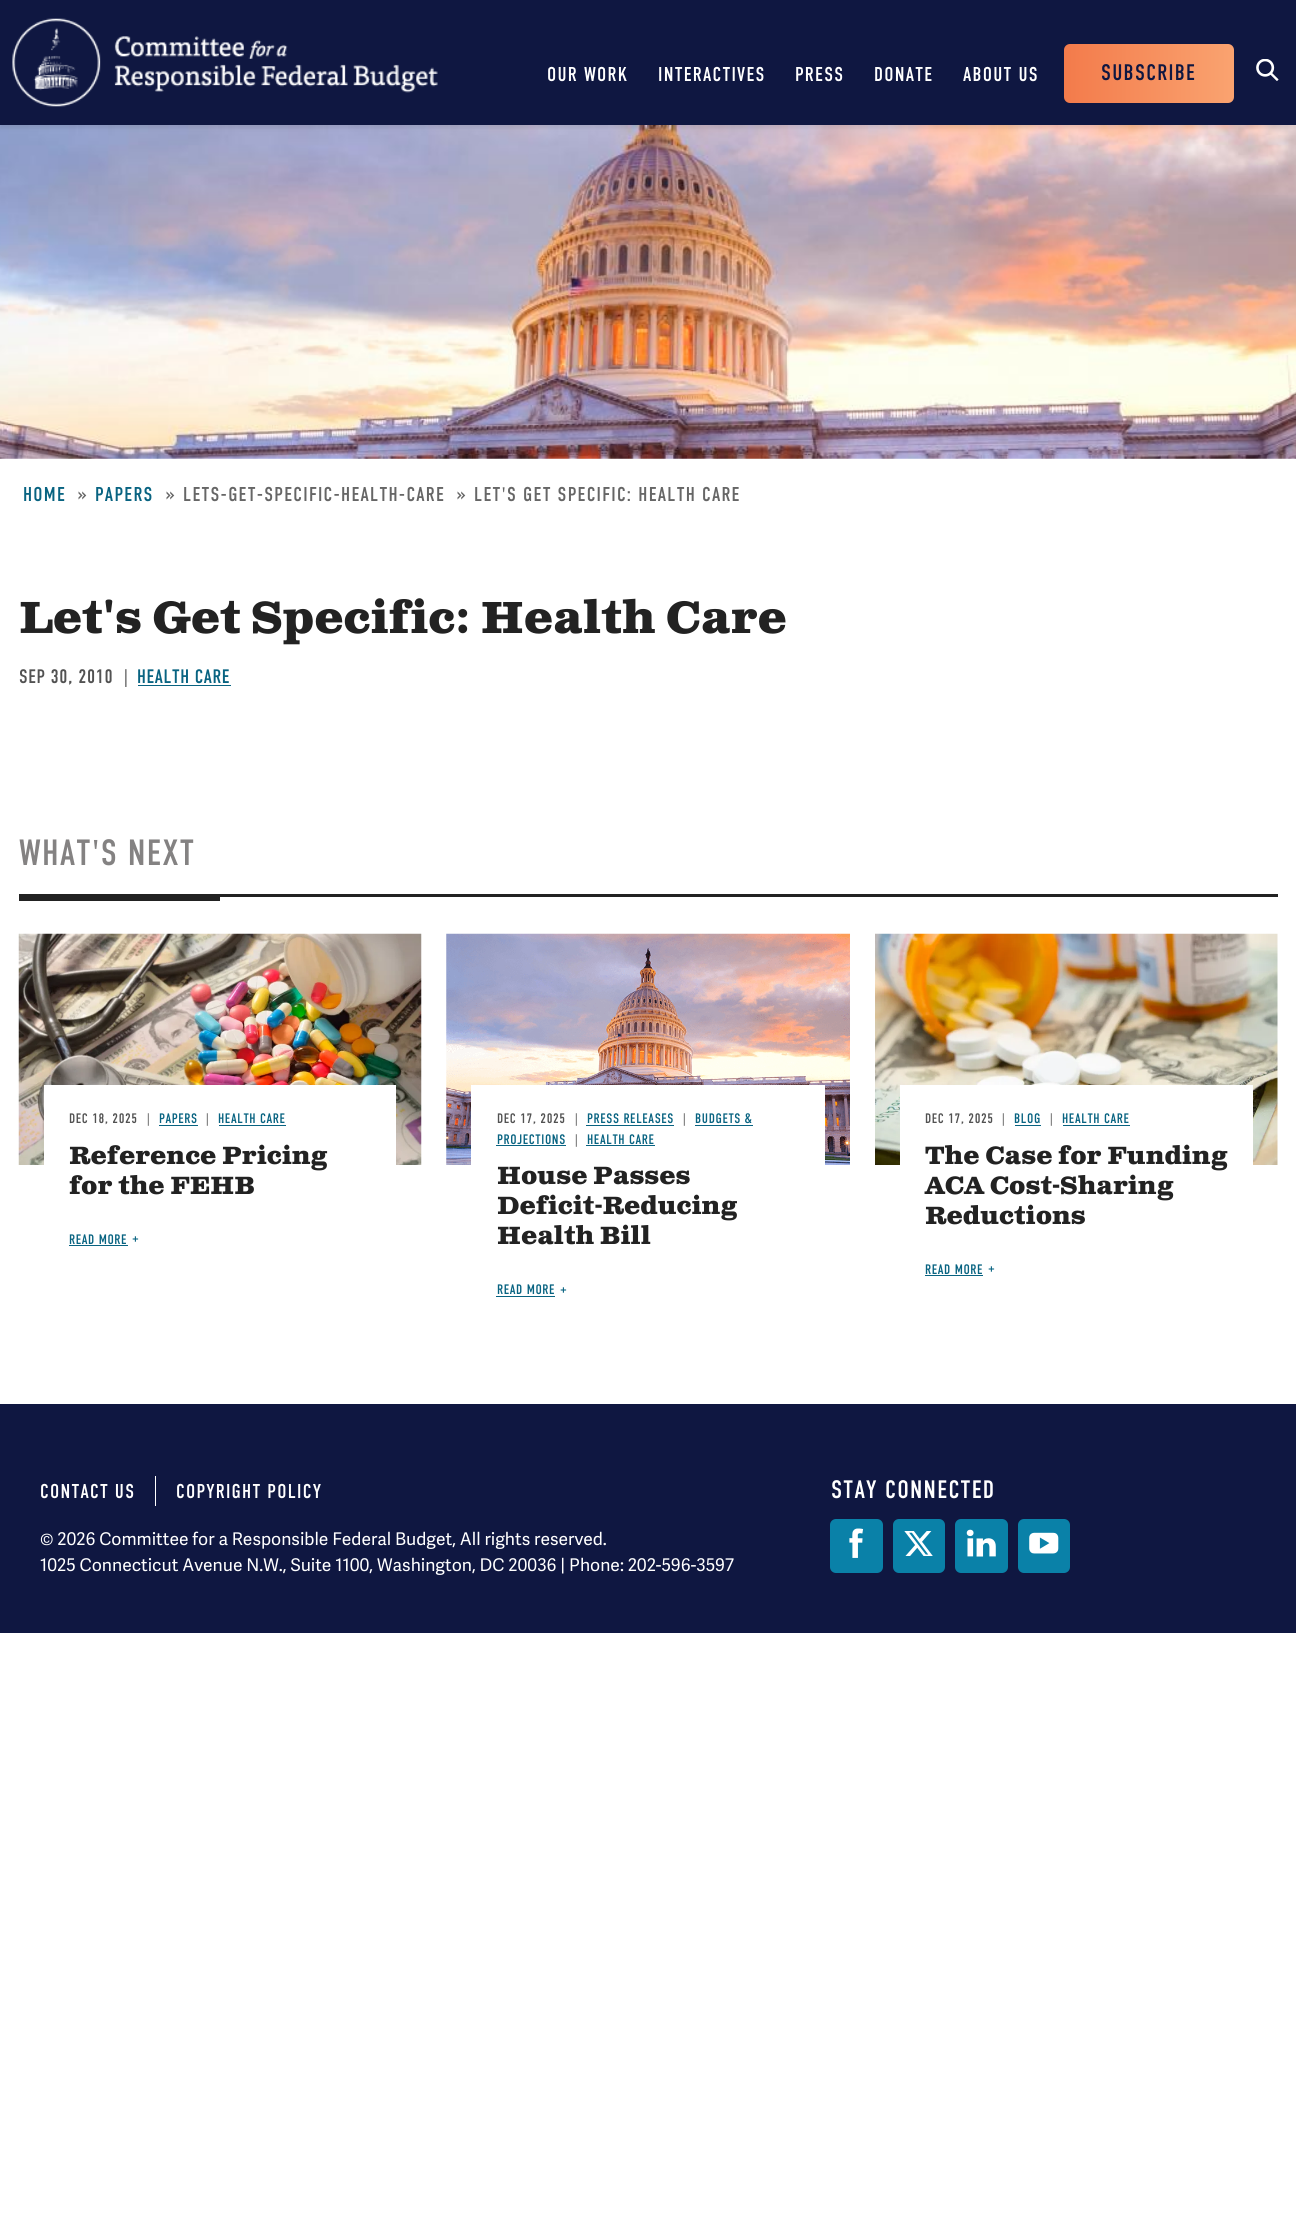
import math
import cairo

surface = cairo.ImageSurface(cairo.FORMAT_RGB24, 1296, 2235)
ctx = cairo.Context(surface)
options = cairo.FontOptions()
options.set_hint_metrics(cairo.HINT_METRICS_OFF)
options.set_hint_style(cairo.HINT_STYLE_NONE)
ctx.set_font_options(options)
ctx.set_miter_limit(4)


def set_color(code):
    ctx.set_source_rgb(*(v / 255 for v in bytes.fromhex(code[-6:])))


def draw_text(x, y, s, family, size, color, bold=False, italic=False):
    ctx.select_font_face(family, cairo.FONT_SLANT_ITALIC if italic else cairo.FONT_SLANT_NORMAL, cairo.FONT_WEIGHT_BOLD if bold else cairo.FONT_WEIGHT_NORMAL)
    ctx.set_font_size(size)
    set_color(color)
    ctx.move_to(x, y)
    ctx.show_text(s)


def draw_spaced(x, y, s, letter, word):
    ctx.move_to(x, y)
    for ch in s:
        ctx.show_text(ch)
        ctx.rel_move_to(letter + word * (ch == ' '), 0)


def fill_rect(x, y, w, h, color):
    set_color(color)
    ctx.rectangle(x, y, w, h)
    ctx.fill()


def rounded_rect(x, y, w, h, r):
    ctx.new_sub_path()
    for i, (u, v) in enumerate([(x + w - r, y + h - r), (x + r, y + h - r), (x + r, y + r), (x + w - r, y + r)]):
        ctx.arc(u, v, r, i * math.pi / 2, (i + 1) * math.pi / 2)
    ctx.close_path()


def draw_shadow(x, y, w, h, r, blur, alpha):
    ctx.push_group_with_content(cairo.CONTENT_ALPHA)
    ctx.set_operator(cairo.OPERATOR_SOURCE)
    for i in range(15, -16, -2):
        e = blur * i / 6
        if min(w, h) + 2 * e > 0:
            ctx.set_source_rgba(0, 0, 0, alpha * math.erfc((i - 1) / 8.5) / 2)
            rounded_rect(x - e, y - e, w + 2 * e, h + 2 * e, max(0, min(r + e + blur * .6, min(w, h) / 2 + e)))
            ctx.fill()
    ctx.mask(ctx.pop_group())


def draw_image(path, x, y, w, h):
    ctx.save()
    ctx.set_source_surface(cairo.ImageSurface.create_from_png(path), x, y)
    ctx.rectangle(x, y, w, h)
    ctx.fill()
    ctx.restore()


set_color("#ffffff")
ctx.paint()
draw_image("assets/img3.png", 0, 125, 1296, 334)
set_color("#222222")
draw_shadow(0, 3, 1296, 125, 0, 2, 0.1)
fill_rect(0, 0, 1296, 125, "#0f1741")
draw_image("assets/img1.png", 12, 18, 426, 89)
ctx.select_font_face("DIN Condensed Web")
ctx.set_font_size(20)
set_color("#ffffff")
draw_spaced(547, 81, "OUR WORK", 1.25, 0)
draw_spaced(658, 81, "INTERACTIVES", 1.25, 0)
draw_spaced(795, 81, "PRESS", 1.25, 0)
draw_spaced(874, 81, "DONATE", 1.25, 0)
draw_spaced(963, 81, "ABOUT US", 1.25, 0)
gradient = cairo.LinearGradient(1064, 73, 1234, 73)
gradient.add_color_stop_rgba(0, 0.953, 0.482, 0.294, 1)
gradient.add_color_stop_rgba(1, 0.98, 0.639, 0.439, 1)
ctx.set_source(gradient)
rounded_rect(1064, 44, 170, 59, 6)
ctx.fill()
ctx.set_font_size(22.5)
set_color("#0f1741")
draw_spaced(1101, 80, "SUBSCRIBE", 1.25, 0)
draw_image("assets/img2.png", 1256, 59, 23, 22)
ctx.set_font_size(20)
set_color("#086381")
draw_spaced(23, 501, "HOME", 1.25, 0)
set_color("#666666")
draw_spaced(78, 501, "»", 1.25, 0)
set_color("#086381")
draw_spaced(95, 501, "PAPERS", 1.25, 0)
set_color("#666666")
draw_spaced(166, 501, "»", 1.25, 0)
draw_spaced(183, 501, "LETS-GET-SPECIFIC-HEALTH-CARE", 1.25, 0)
draw_spaced(457, 501, "»", 1.25, 0)
draw_spaced(474, 501, "LET'S GET SPECIFIC: HEALTH CARE", 1.25, 0)
draw_text(19, 633, "Let's Get Specific: Health Care", "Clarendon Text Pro", 45, "#222222", bold=True)
ctx.select_font_face("DIN Condensed Web")
ctx.set_font_size(19.5)
set_color("#525252")
draw_spaced(19, 683, "SEP 30, 2010", 0.6, 0)
set_color("#666666")
draw_spaced(124, 683, "|", 0.6, 0)
set_color("#086381")
draw_spaced(137, 683, "HEALTH CARE", 0.6, 0)
fill_rect(138, 685, 93, 1, "#086381")
fill_rect(19, 894, 1259, 3, "#222222")
fill_rect(19, 897, 201, 4, "#222222")
ctx.set_font_size(36.5)
set_color("#848282")
draw_spaced(19, 865, "WHAT'S NEXT", 1.25, 0)
draw_image("assets/img4.png", 18, 933, 404, 232)
fill_rect(44, 1085, 352, 80, "#ffffff")
ctx.set_font_size(13.75)
set_color("#525252")
draw_spaced(69, 1123, "DEC 18, 2025", 0.6, 0)
set_color("#666666")
draw_spaced(147, 1123, "|", 0.6, 0)
set_color("#086381")
draw_spaced(159, 1123, "PAPERS", 0.6, 0)
fill_rect(159, 1125, 39, 1, "#086381")
set_color("#666666")
draw_spaced(206, 1123, "|", 0.6, 0)
set_color("#086381")
draw_spaced(218, 1123, "HEALTH CARE", 0.6, 0)
fill_rect(219, 1125, 67, 1, "#086381")
draw_text(69, 1164, "Reference Pricing", "Clarendon Text Pro", 25, "#222222", bold=True)
draw_text(69, 1194, "for the FEHB", "Clarendon Text Pro", 25, "#222222", bold=True)
ctx.select_font_face("DIN Condensed Web")
ctx.set_font_size(13.75)
set_color("#086381")
draw_spaced(69, 1244, "READ MORE", 0.6, 0)
fill_rect(69, 1245, 59, 1, "#086381")
draw_spaced(132, 1243, "+", 0.6, 0)
draw_image("assets/img5.png", 446, 933, 404, 232)
fill_rect(471, 1085, 354, 80, "#ffffff")
set_color("#525252")
draw_spaced(497, 1123, "DEC 17, 2025", 0.6, 0)
set_color("#666666")
draw_spaced(683, 1123, "|", 0.6, 0)
set_color("#086381")
draw_spaced(695, 1123, "BUDGETS &", 0.6, 0)
fill_rect(695, 1125, 58, 1, "#086381")
draw_spaced(497, 1144, "PROJECTIONS", 0.6, 0)
fill_rect(496, 1145, 70, 1, "#086381")
set_color("#666666")
draw_spaced(575, 1144, "|", 0.6, 0)
set_color("#086381")
draw_spaced(587, 1144, "HEALTH CARE", 0.6, 0)
fill_rect(586, 1145, 69, 1, "#086381")
set_color("#666666")
draw_spaced(575, 1123, "|", 0.6, 0)
set_color("#086381")
draw_spaced(587, 1123, "PRESS RELEASES", 0.6, 0)
fill_rect(586, 1125, 88, 1, "#086381")
draw_text(497, 1184, "House Passes", "Clarendon Text Pro", 25, "#222222", bold=True)
draw_text(497, 1214, "Deficit-Reducing", "Clarendon Text Pro", 25, "#222222", bold=True)
draw_text(497, 1244, "Health Bill", "Clarendon Text Pro", 25, "#222222", bold=True)
ctx.select_font_face("DIN Condensed Web")
ctx.set_font_size(13.75)
set_color("#086381")
draw_spaced(497, 1294, "READ MORE", 0.6, 0)
fill_rect(496, 1296, 59, 1, "#086381")
draw_spaced(560, 1294, "+", 0.6, 0)
draw_image("assets/img6.png", 875, 933, 403, 232)
fill_rect(900, 1085, 353, 80, "#ffffff")
set_color("#525252")
draw_spaced(925, 1123, "DEC 17, 2025", 0.6, 0)
set_color("#666666")
draw_spaced(1002, 1123, "|", 0.6, 0)
set_color("#086381")
draw_spaced(1014, 1123, "BLOG", 0.6, 0)
fill_rect(1015, 1125, 26, 1, "#086381")
set_color("#666666")
draw_spaced(1050, 1123, "|", 0.6, 0)
set_color("#086381")
draw_spaced(1062, 1123, "HEALTH CARE", 0.6, 0)
fill_rect(1063, 1125, 67, 1, "#086381")
draw_text(925, 1164, "The Case for Funding", "Clarendon Text Pro", 25, "#222222", bold=True)
draw_text(925, 1194, "ACA Cost-Sharing", "Clarendon Text Pro", 25, "#222222", bold=True)
draw_text(925, 1224, "Reductions", "Clarendon Text Pro", 25, "#222222", bold=True)
ctx.select_font_face("DIN Condensed Web")
ctx.set_font_size(13.75)
set_color("#086381")
draw_spaced(925, 1274, "READ MORE", 0.6, 0)
fill_rect(925, 1275, 58, 1, "#086381")
draw_spaced(988, 1273, "+", 0.6, 0)
fill_rect(0, 1404, 1296, 229, "#0f1741")
ctx.set_font_size(20)
set_color("#ffffff")
draw_spaced(40, 1498, "CONTACT US", 1.25, 0)
fill_rect(155, 1476, 1, 30, "#ffffff")
draw_spaced(176, 1498, "COPYRIGHT POLICY", 1.25, 0)
draw_text(40, 1545, "© 2026 Committee for a Responsible Federal Budget, All rights reserved.", "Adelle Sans", 17.5, "#ffffff")
draw_text(40, 1571, "1025 Connecticut Avenue N.W., Suite 1100, Washington, DC 20036 | Phone: 202-596-3597", "Adelle Sans", 17.5, "#ffffff")
ctx.select_font_face("DIN Condensed Web")
ctx.set_font_size(25.25)
draw_spaced(831, 1498, "STAY CONNECTED", 1.25, 0)
set_color("#0a81a8")
rounded_rect(830, 1519, 53, 54, 6)
ctx.fill()
draw_image("assets/img7.png", 849, 1528, 15, 30)
rounded_rect(893, 1519, 52, 54, 6)
ctx.fill()
draw_image("assets/img8.png", 904, 1531, 29, 25)
rounded_rect(955, 1519, 53, 54, 6)
ctx.fill()
draw_image("assets/img9.png", 966, 1529, 30, 28)
rounded_rect(1018, 1519, 52, 54, 6)
ctx.fill()
draw_image("assets/img10.png", 1029, 1532, 30, 22)
surface.write_to_png("output.png")
